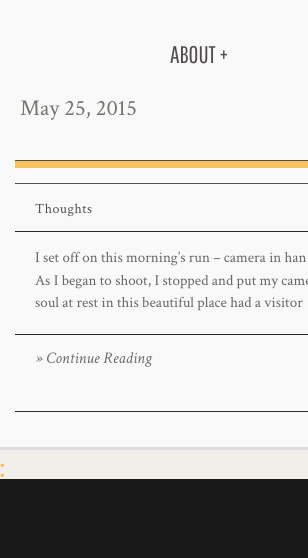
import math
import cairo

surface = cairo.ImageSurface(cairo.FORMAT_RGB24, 308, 558)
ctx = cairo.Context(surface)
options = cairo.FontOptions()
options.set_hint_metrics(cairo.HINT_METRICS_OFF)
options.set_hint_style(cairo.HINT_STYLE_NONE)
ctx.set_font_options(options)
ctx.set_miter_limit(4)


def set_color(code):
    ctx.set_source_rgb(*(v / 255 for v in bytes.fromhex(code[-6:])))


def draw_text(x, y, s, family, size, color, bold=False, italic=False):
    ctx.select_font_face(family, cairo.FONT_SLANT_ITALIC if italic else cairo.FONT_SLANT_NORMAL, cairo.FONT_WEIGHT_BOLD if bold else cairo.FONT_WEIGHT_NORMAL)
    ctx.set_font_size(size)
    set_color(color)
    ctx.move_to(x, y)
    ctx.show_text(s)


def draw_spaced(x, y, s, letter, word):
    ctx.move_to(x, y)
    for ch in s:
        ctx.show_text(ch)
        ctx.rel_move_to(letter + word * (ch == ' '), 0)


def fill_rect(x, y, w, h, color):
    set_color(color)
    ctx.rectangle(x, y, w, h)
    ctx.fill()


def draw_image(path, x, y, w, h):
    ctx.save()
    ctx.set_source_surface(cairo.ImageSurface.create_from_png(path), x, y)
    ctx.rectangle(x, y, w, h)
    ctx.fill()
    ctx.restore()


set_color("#181818")
ctx.paint()
fill_rect(0, 0, 308, 447, "#f9f9f9")
draw_text(170, 63, "ABOUT +", "Pathway Gothic One", 24, "#534c4c")
draw_text(20, 115, "May 25, 2015", "Crimson Text", 22.5, "#78746e")
fill_rect(15, 411, 293, 1, "#2c2c2c")
fill_rect(15, 160, 293, 1, "#505050")
fill_rect(15, 183, 293, 1, "#505050")
fill_rect(15, 161, 293, 7, "#fcc25f")
fill_rect(15, 231, 293, 1, "#282828")
ctx.set_font_size(14)
set_color("#534c4c")
draw_spaced(35, 213, "Thoughts", 0.5, 0)
fill_rect(15, 334, 293, 1, "#282828")
draw_text(35, 262, "I set off on this morning’s run – camera in han", "Crimson Text", 15, "#666666")
draw_text(35, 285, "As I began to shoot, I stopped and put my came", "Crimson Text", 15, "#666666")
draw_text(35, 307, "soul at rest in this beautiful place had a visitor", "Crimson Text", 15, "#666666")
draw_text(35, 363, "» Continue Reading", "Crimson Text", 16.25, "#6c6a65", italic=True)
fill_rect(0, 450, 308, 29, "#f2efea")
fill_rect(0, 447, 308, 3, "#dddddd")
draw_image("assets/img1.png", 0, 463, 4, 14)
surface.write_to_png("output.png")
